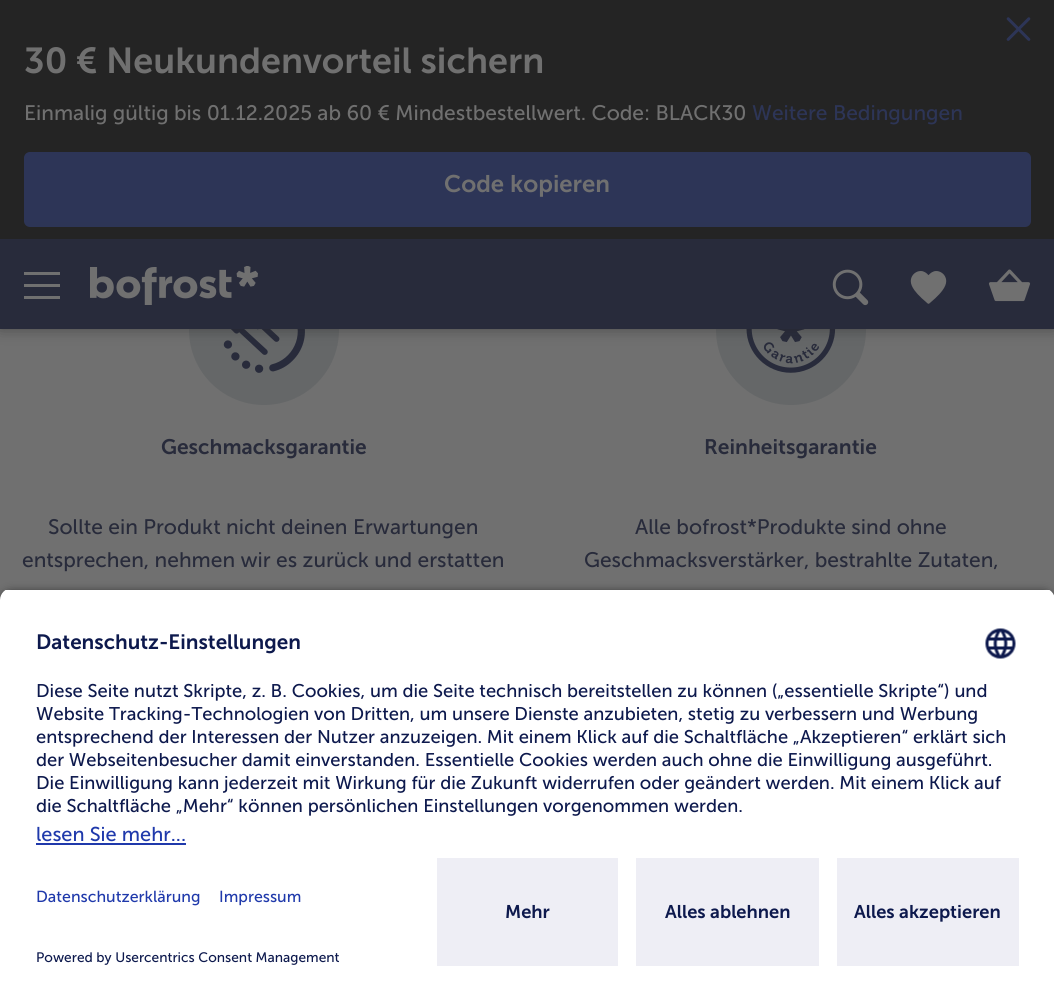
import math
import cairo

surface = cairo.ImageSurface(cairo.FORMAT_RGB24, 1054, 1001)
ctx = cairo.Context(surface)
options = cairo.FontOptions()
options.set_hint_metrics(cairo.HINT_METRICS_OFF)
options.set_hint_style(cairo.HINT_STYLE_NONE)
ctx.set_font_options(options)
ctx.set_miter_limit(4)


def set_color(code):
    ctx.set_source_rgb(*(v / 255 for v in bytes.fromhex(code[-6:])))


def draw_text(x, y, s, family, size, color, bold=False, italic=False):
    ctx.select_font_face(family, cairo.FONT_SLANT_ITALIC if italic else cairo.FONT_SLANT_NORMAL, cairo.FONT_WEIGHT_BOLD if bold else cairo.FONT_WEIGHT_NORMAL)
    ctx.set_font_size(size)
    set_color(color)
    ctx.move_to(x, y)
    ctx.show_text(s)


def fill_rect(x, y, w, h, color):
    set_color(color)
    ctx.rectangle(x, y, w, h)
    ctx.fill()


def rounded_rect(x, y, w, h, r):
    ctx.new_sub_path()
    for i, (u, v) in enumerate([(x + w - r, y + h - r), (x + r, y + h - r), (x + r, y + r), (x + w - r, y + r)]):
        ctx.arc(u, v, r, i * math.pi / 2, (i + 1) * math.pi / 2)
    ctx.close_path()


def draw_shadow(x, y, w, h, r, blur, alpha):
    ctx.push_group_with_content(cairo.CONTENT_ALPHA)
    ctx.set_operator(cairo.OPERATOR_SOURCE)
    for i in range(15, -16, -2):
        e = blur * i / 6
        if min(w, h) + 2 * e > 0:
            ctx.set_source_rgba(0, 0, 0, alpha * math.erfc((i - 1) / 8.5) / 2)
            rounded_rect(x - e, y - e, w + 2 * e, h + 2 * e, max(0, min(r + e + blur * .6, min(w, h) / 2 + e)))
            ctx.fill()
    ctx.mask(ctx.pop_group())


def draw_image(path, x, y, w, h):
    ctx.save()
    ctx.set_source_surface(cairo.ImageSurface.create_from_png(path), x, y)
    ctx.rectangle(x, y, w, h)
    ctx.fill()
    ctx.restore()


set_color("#707070")
ctx.paint()
fill_rect(0, 0, 1054, 239, "#242424")
draw_image("assets/img1.png", 1006, 17, 25, 24)
draw_text(24, 73, "30 € Neukundenvorteil sichern", "Museo Sans SemiBold", 36, "#707070")
draw_text(24, 120, "Einmalig gültig bis 01.12.2025 ab 60 € Mindestbestellwert. Code: BLACK30", "Museo Sans", 21, "#707070")
draw_text(752, 120, "Weitere Bedingungen", "Museo Sans", 21, "#2d3557")
rounded_rect(25, 153, 1005, 73, 5)
ctx.fill_preserve()
ctx.stroke()
draw_text(444, 192, "Code kopieren", "Museo Sans SemiBold", 24, "#707070")
set_color("#656768")
ctx.new_path()
ctx.arc(264, 330, 75, 0, 2 * math.pi)
ctx.fill()
draw_image("assets/img6.png", 223, 329, 82, 44)
ctx.arc(791, 330, 75, 0, 2 * math.pi)
ctx.fill()
draw_image("assets/img7.png", 746, 329, 90, 44)
set_color("#242424")
draw_shadow(0, 239, 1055, 90, 0, 7.5, 0.5)
fill_rect(0, 239, 1054, 90, "#282b3b")
fill_rect(24, 272, 36, 3, "#707070")
fill_rect(24, 284, 36, 3, "#707070")
fill_rect(24, 296, 36, 3, "#707070")
draw_image("assets/img2.png", 90, 266, 168, 39)
draw_image("assets/img3.png", 832, 269, 37, 37)
draw_image("assets/img4.png", 910, 271, 37, 33)
draw_image("assets/img5.png", 988, 269, 43, 33)
draw_text(161, 454, "Geschmacksgarantie", "Museo Sans SemiBold", 21, "#282b3b")
draw_text(48, 534, "Sollte ein Produkt nicht deinen Erwartungen", "Museo Sans", 21, "#282b3b")
draw_text(22, 567, "entsprechen, nehmen wir es zurück und erstatten", "Museo Sans", 21, "#282b3b")
draw_text(704, 454, "Reinheitsgarantie", "Museo Sans SemiBold", 21, "#282b3b")
draw_text(635, 534, "Alle bofrost*Produkte sind ohne", "Museo Sans", 21, "#282b3b")
draw_text(584, 567, "Geschmacksverstärker, bestrahlte Zutaten,", "Museo Sans", 21, "#282b3b")
set_color("#000000")
draw_shadow(0, 593, 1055, 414, 12, 5, 0.8)
ctx.save()
ctx.new_path()
ctx.move_to(12, 588)
ctx.line_to(1043, 588)
ctx.curve_to(1049.5, 588, 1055, 593.5, 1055, 600)
ctx.line_to(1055, 846)
ctx.line_to(0, 846)
ctx.line_to(0, 600)
ctx.curve_to(0, 593.5, 5.5, 588, 12, 588)
ctx.close_path()
ctx.clip()
fill_rect(0, 590, 1054, 256, "#ffffff")
ctx.restore()
draw_text(36, 649, "Datenschutz-Einstellungen", "Museo Sans SemiBold", 20.7, "#0d194d")
draw_image("assets/img8.png", 985, 628, 31, 31)
draw_text(36, 697, "Diese Seite nutzt Skripte, z. B. Cookies, um die Seite technisch bereitstellen zu können („essentielle Skripte“) und", "Museo Sans", 18.38, "#0d194d")
draw_text(36, 720, "Website Tracking-Technologien von Dritten, um unsere Dienste anzubieten, stetig zu verbessern und Werbung", "Museo Sans", 18.38, "#0d194d")
draw_text(36, 743, "entsprechend der Interessen der Nutzer anzuzeigen. Mit einem Klick auf die Schaltfläche „Akzeptieren“ erklärt sich", "Museo Sans", 18.38, "#0d194d")
draw_text(36, 766, "der Webseitenbesucher damit einverstanden. Essentielle Cookies werden auch ohne die Einwilligung ausgeführt.", "Museo Sans", 18.38, "#0d194d")
draw_text(36, 789, "Die Einwilligung kann jederzeit mit Wirkung für die Zukunft widerrufen oder geändert werden. Mit einem Klick auf", "Museo Sans", 18.38, "#0d194d")
draw_text(36, 812, "die Schaltfläche „Mehr“ können persönlichen Einstellungen vorgenommen werden.", "Museo Sans", 18.38, "#0d194d")
draw_text(36, 841, "lesen Sie mehr...", "Museo Sans", 20, "#1f39ab")
fill_rect(36, 843, 150, 2, "#1f39ab")
fill_rect(0, 846, 1054, 155, "#ffffff")
draw_text(36, 902, "Datenschutzerklärung", "Museo Sans", 16, "#1f39ab")
draw_text(219, 902, "Impressum", "Museo Sans", 16, "#1f39ab")
draw_text(36, 962, "Powered by Usercentrics Consent Management", "Museo Sans", 13.75, "#0d194d")
fill_rect(437, 858, 181, 108, "#eeeef5")
draw_text(505, 918, "Mehr", "Museo Sans SemiBold", 18.38, "#0d194d")
fill_rect(636, 858, 183, 108, "#eeeef5")
draw_text(665, 918, "Alles ablehnen", "Museo Sans SemiBold", 18.38, "#0d194d")
fill_rect(837, 858, 182, 108, "#eeeef5")
draw_text(854, 918, "Alles akzeptieren", "Museo Sans SemiBold", 18.38, "#0d194d")
surface.write_to_png("output.png")
